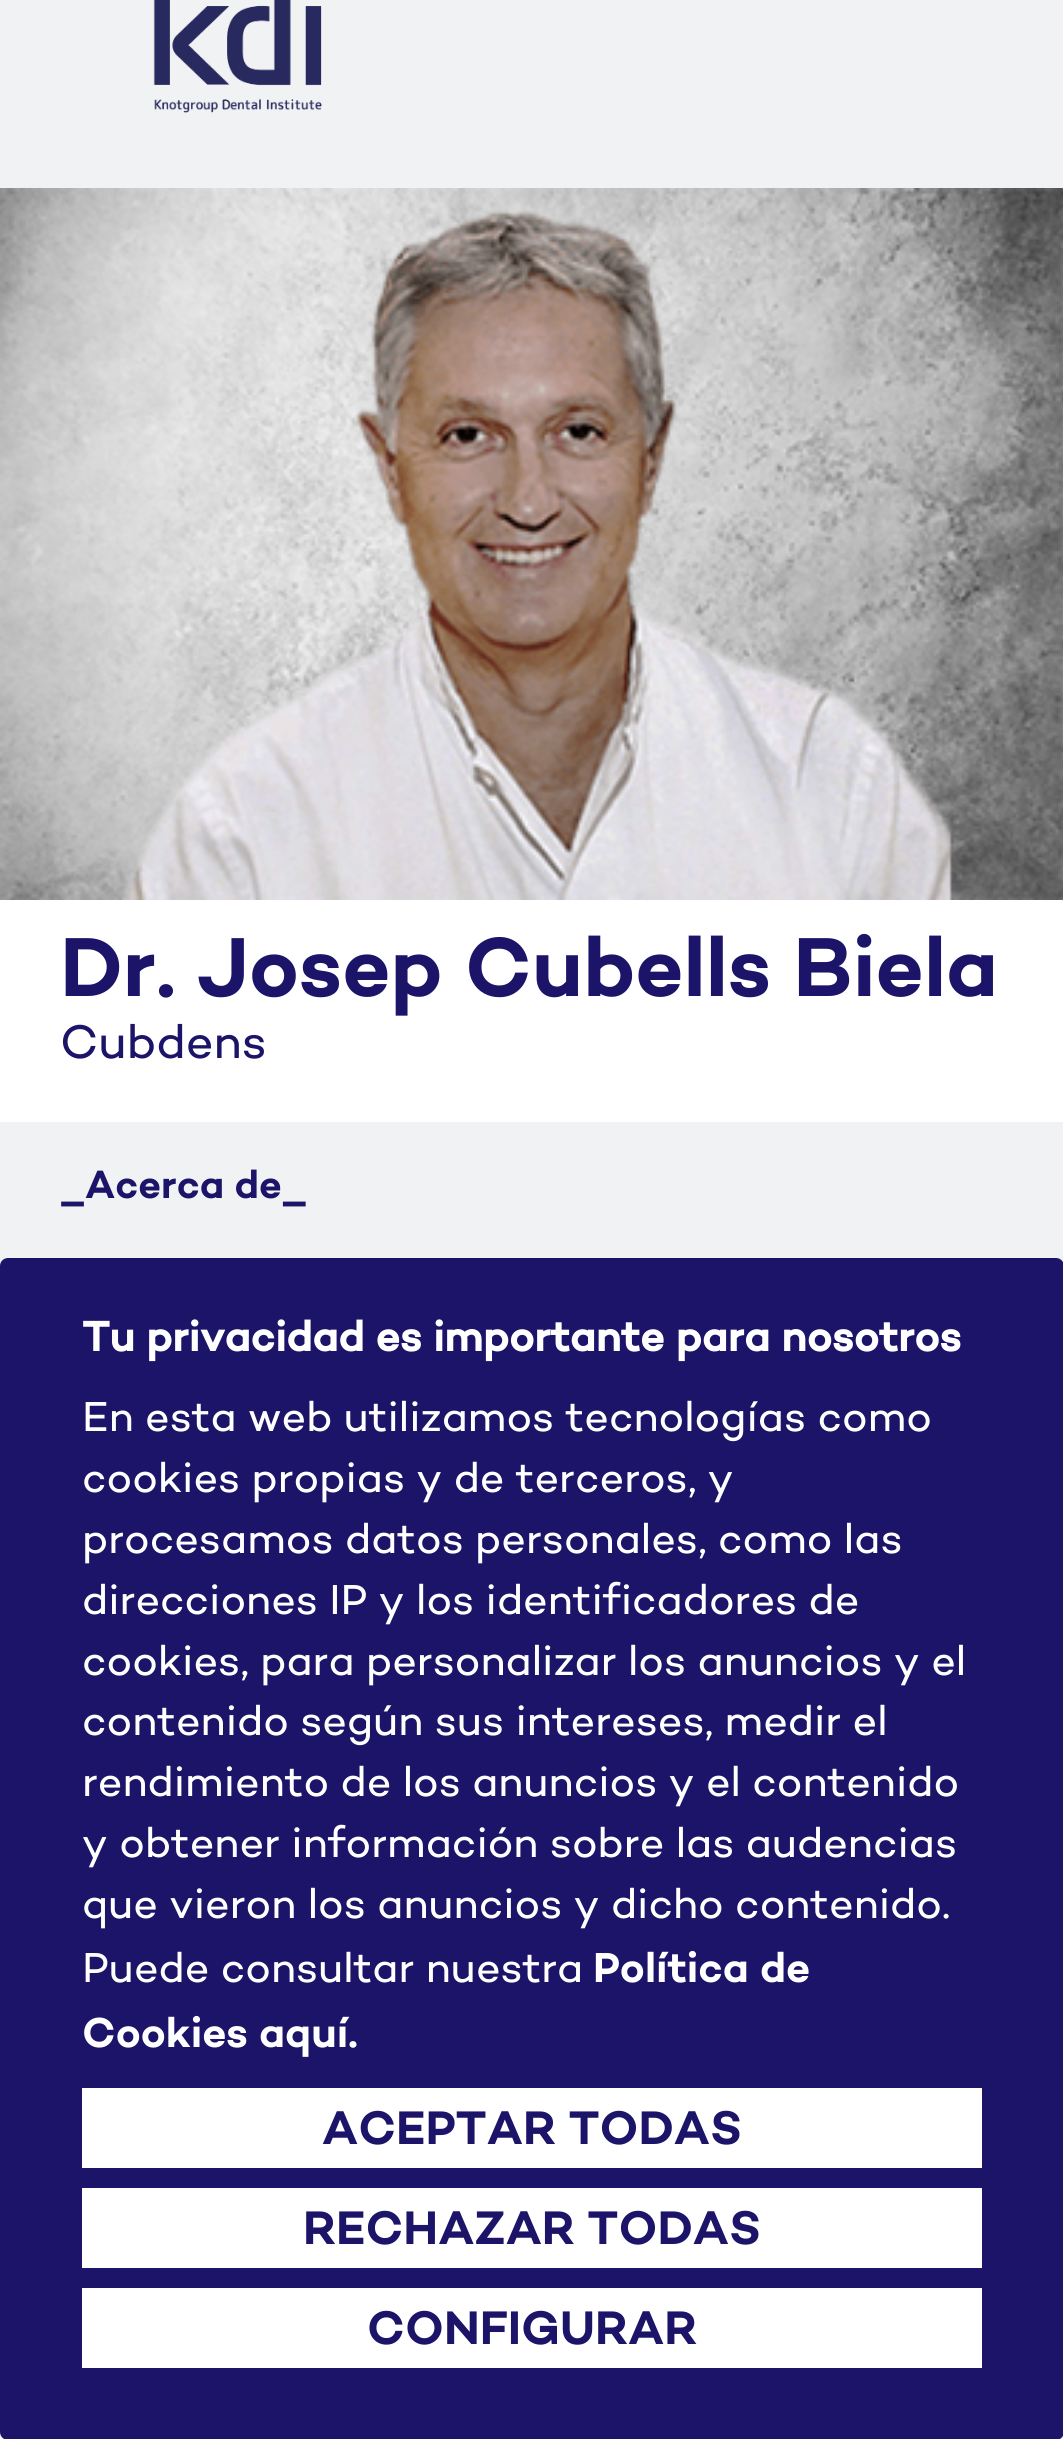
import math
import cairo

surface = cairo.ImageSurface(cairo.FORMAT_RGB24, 1063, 2439)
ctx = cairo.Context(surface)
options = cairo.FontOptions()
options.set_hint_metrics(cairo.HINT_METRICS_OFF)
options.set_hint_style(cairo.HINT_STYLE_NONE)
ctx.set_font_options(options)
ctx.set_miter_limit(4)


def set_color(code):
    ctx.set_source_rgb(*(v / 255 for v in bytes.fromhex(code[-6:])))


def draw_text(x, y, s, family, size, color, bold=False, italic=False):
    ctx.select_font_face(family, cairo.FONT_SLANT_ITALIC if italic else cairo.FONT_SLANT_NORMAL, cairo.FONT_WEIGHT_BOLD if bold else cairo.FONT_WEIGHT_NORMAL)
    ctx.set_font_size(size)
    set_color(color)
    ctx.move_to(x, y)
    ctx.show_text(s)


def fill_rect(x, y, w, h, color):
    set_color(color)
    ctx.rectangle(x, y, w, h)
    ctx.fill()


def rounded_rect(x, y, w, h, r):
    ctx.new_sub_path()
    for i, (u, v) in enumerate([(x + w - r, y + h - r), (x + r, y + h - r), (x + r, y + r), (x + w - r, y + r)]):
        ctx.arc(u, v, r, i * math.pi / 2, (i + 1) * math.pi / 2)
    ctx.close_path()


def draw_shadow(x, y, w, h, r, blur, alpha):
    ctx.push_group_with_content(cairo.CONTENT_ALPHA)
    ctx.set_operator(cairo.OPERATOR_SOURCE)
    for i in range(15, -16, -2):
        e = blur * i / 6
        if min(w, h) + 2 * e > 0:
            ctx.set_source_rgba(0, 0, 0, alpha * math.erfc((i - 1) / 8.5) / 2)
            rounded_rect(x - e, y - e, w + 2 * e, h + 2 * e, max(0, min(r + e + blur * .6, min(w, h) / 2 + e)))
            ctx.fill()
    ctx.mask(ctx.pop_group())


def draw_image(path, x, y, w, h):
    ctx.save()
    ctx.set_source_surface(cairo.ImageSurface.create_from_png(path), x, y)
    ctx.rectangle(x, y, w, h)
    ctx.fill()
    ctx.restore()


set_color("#ffffff")
ctx.paint()
fill_rect(0, 0, 1063, 188, "#f1f2f3")
draw_image("assets/img1.png", 153, 0, 169, 113)
draw_image("assets/img2.png", 0, 188, 1063, 712)
draw_text(60, 996, "Dr. Josep Cubells Biela", "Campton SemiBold", 85.1, "#1b1468")
draw_text(60, 1058, "Cubdens", "Campton", 48, "#1b1468")
fill_rect(0, 1122, 1063, 144, "#f1f2f3")
draw_text(60, 1198, "_Acerca de_", "Campton SemiBold", 40, "#1b1468")
set_color("#000000")
draw_shadow(0, 1260, 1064, 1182, 8, 1, 0.05)
set_color("#1b1468")
rounded_rect(0, 1258, 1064, 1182, 8)
ctx.fill()
draw_text(82, 1351, "Tu privacidad es importante para nosotros", "Campton", 42.6, "#ffffff", bold=True)
draw_text(82, 1431, "En esta web utilizamos tecnologías como", "Campton", 42.6, "#ffffff")
draw_text(82, 1492, "cookies propias y de terceros, y", "Campton", 42.6, "#ffffff")
draw_text(82, 1553, "procesamos datos personales, como las", "Campton", 42.6, "#ffffff")
draw_text(82, 1614, "direcciones IP y los identificadores de", "Campton", 42.6, "#ffffff")
draw_text(82, 1675, "cookies, para personalizar los anuncios y el", "Campton", 42.6, "#ffffff")
draw_text(82, 1735, "contenido según sus intereses, medir el", "Campton", 42.6, "#ffffff")
draw_text(82, 1796, "rendimiento de los anuncios y el contenido", "Campton", 42.6, "#ffffff")
draw_text(82, 1857, "y obtener información sobre las audencias", "Campton", 42.6, "#ffffff")
draw_text(82, 1918, "que vieron los anuncios y dicho contenido.", "Campton", 42.6, "#ffffff")
draw_text(82, 1982, "Puede consultar nuestra", "Campton", 42.6, "#ffffff")
draw_text(593, 1982, "Política de", "Campton SemiBold", 42.6, "#ffffff")
draw_text(82, 2047, "Cookies aquí.", "Campton SemiBold", 42.6, "#ffffff")
fill_rect(82, 2088, 900, 80, "#ffffff")
draw_text(322, 2144, "ACEPTAR TODAS", "Campton SemiBold", 47.9, "#1b1468")
fill_rect(82, 2188, 900, 80, "#ffffff")
draw_text(303, 2244, "RECHAZAR TODAS", "Campton SemiBold", 47.9, "#1b1468")
fill_rect(82, 2288, 900, 80, "#ffffff")
draw_text(367, 2344, "CONFIGURAR", "Campton SemiBold", 47.9, "#1b1468")
surface.write_to_png("output.png")
